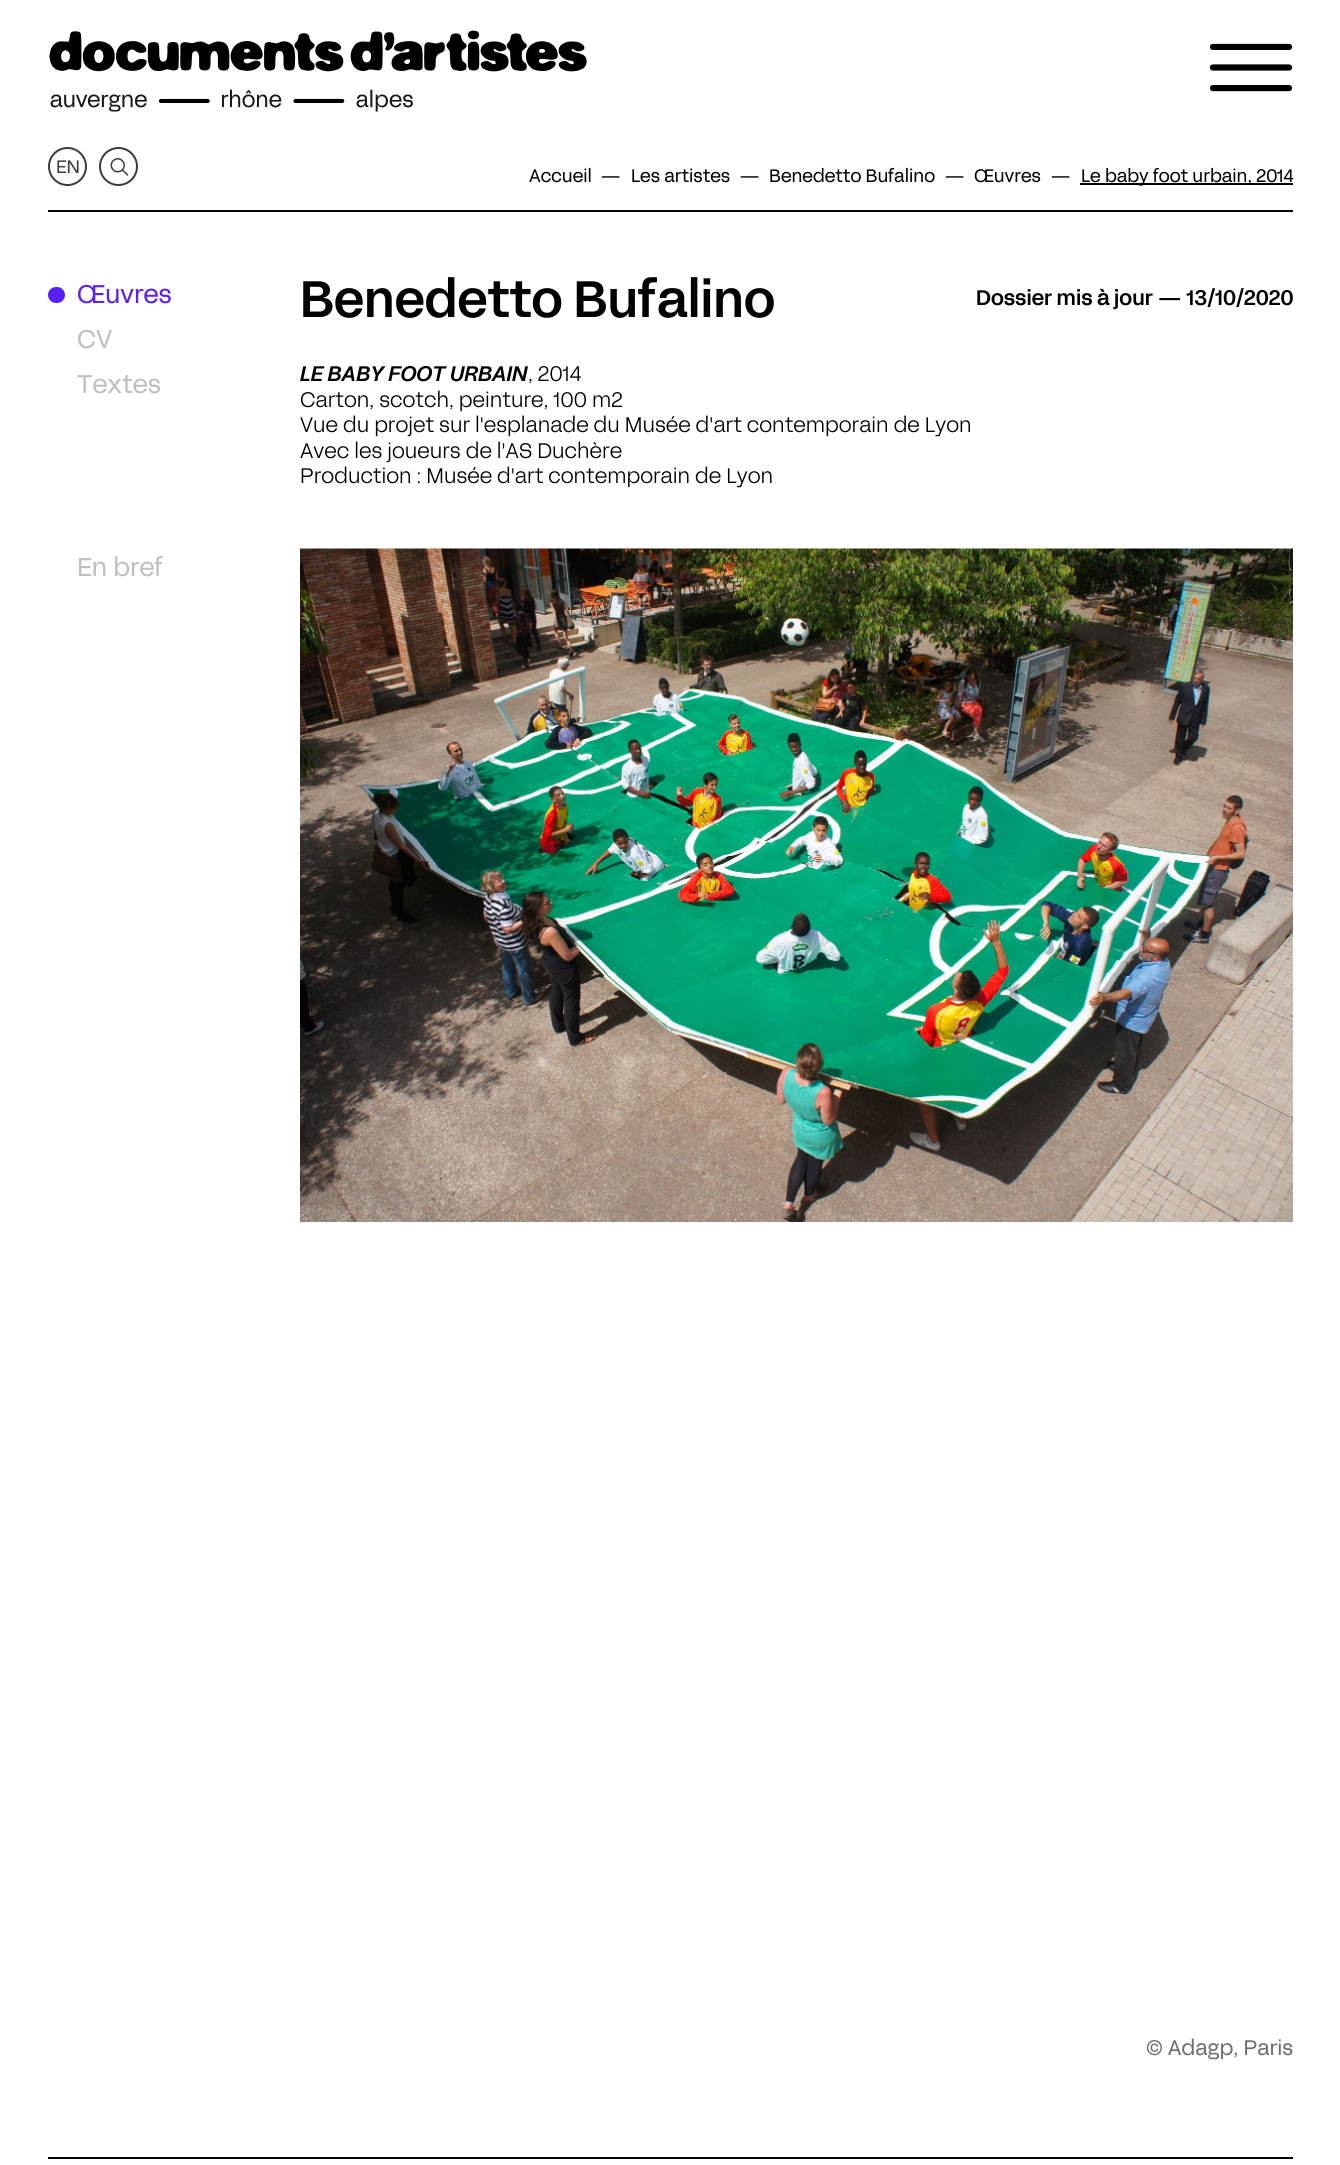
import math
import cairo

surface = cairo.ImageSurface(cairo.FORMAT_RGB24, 1340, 2165)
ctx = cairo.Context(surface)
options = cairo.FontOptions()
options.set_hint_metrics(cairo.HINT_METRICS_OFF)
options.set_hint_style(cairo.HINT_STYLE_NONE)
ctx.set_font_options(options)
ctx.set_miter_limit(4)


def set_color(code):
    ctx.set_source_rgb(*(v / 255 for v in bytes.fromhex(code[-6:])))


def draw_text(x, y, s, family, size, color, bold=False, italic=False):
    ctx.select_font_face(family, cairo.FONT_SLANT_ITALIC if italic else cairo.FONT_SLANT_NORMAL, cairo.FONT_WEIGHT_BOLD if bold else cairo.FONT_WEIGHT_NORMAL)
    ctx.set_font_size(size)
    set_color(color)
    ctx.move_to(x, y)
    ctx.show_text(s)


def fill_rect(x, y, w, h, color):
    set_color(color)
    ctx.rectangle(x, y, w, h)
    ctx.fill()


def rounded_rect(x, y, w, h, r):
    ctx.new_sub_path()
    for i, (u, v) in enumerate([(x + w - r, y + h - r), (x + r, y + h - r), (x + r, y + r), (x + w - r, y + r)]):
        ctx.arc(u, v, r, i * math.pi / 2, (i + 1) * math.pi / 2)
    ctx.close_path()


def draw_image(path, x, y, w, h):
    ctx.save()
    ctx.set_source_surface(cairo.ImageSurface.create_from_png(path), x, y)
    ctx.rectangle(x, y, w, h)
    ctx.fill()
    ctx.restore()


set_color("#ffffff")
ctx.paint()
draw_image("assets/img1.png", 49, 30, 538, 82)
draw_image("assets/img2.png", 1209, 43, 84, 49)
fill_rect(48, 210, 1245, 2, "#000000")
ctx.arc(67.5, 166.5, 18.5, 0, 2 * math.pi)
set_color("#3c3c3c")
ctx.stroke()
draw_text(56, 173, "EN", "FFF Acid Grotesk", 18, "#3c3c3c")
ctx.new_path()
ctx.arc(118.5, 166.5, 18.5, 0, 2 * math.pi)
ctx.stroke()
draw_image("assets/img3.png", 110, 158, 19, 18)
draw_text(529, 182, "Accueil", "FFF Acid Grotesk", 18, "#000000")
draw_text(600, 182, "—", "FFF Acid Grotesk", 18, "#000000")
draw_text(631, 182, "Les artistes", "FFF Acid Grotesk", 18, "#000000")
draw_text(739, 182, "—", "FFF Acid Grotesk", 18, "#000000")
draw_text(769, 182, "Benedetto Bufalino", "FFF Acid Grotesk", 18, "#000000")
draw_text(944, 182, "—", "FFF Acid Grotesk", 18, "#000000")
draw_text(974, 182, "Œuvres", "FFF Acid Grotesk", 18, "#000000")
draw_text(1050, 182, "—", "FFF Acid Grotesk", 18, "#000000")
fill_rect(1080, 183, 213, 2, "#000000")
draw_text(1081, 182, "Le baby foot urbain, 2014", "FFF Acid Grotesk", 18, "#000000")
set_color("#5a20fc")
rounded_rect(48, 287, 17, 16, 8)
ctx.fill()
draw_text(77, 303, "Œuvres", "FFF Acid Grotesk", 25.5, "#5a20fc")
draw_text(77, 348, "CV", "FFF Acid Grotesk", 25.5, "#bfbfbf")
draw_text(77, 393, "Textes", "FFF Acid Grotesk", 25.5, "#bfbfbf")
draw_text(77, 576, "En bref", "FFF Acid Grotesk", 25.5, "#bfbfbf")
draw_text(300, 317, "Benedetto Bufalino", "FFF Acid Grotesk Medium", 51, "#000000")
draw_text(976, 305, "Dossier mis à jour — 13/10/2020", "FFF Acid Grotesk Medium", 21, "#000000")
draw_text(300, 381, "LE BABY FOOT URBAIN", "FFF Acid Grotesk Medium", 21, "#000000", italic=True)
draw_text(528, 381, ", 2014", "FFF Acid Grotesk Light", 21, "#000000")
draw_text(300, 407, "Carton, scotch, peinture, 100 m2", "FFF Acid Grotesk Light", 21, "#000000")
draw_text(300, 432, "Vue du projet sur l'esplanade du Musée d'art contemporain de Lyon", "FFF Acid Grotesk Light", 21, "#000000")
draw_text(300, 458, "Avec les joueurs de l'AS Duchère", "FFF Acid Grotesk Light", 21, "#000000")
draw_text(300, 483, "Production : Musée d'art contemporain de Lyon", "FFF Acid Grotesk Light", 21, "#000000")
draw_image("assets/img4.png", 300, 548, 993, 674)
draw_text(1146, 2055, "© Adagp, Paris", "FFF Acid Grotesk", 21, "#707070")
fill_rect(48, 2157, 1245, 2, "#000000")
surface.write_to_png("output.png")
